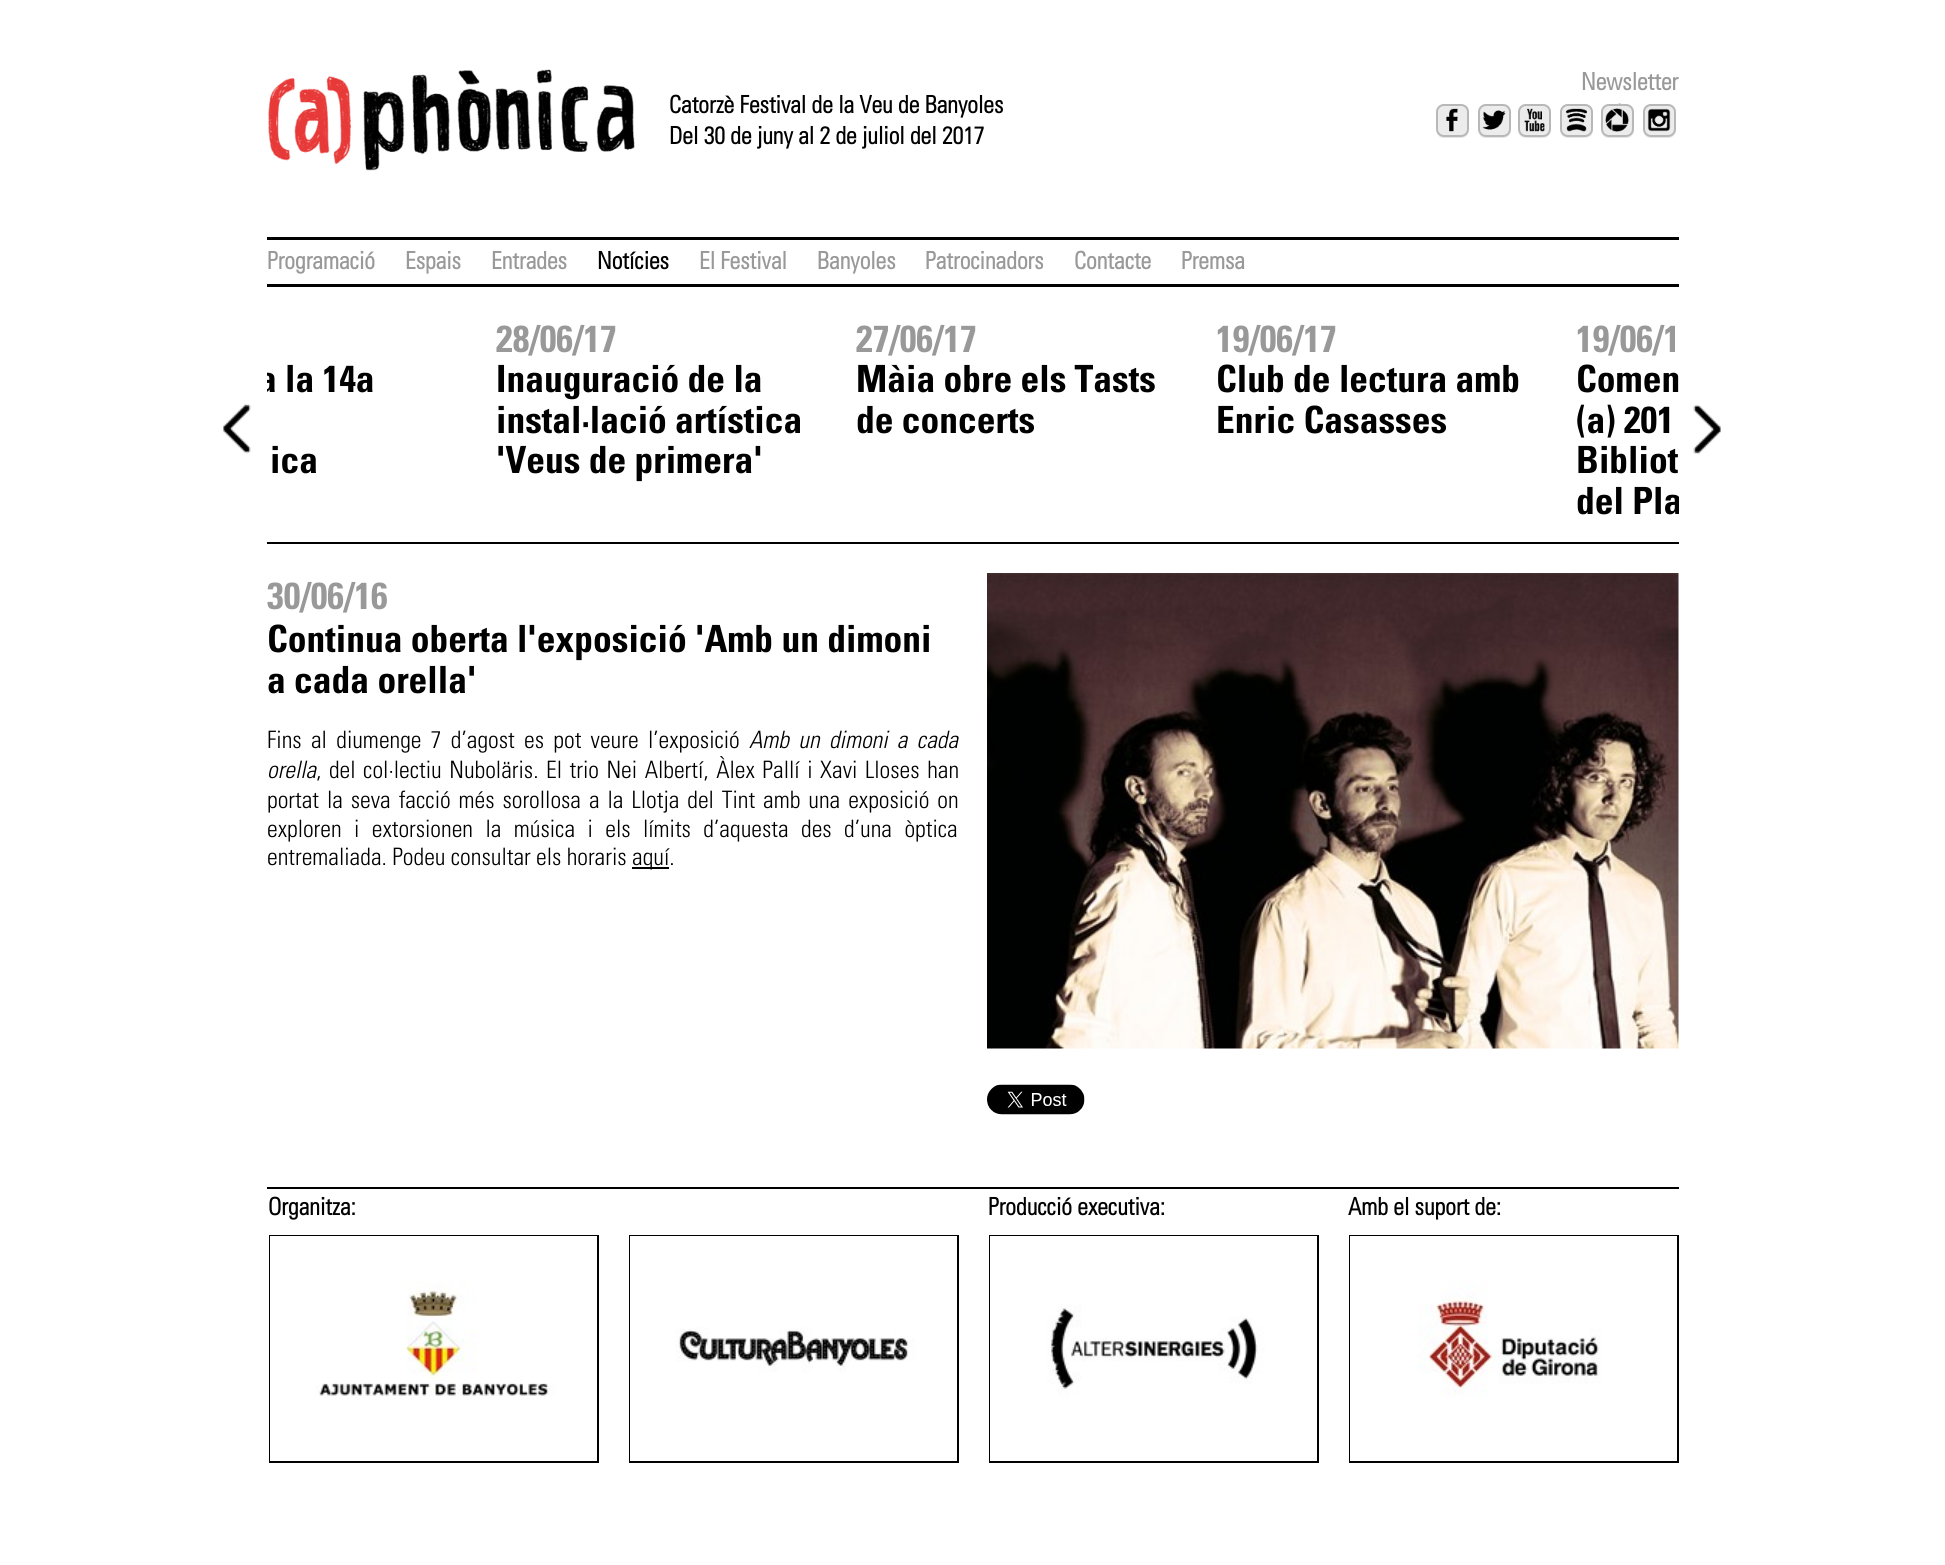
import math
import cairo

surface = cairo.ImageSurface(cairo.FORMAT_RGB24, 1945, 1565)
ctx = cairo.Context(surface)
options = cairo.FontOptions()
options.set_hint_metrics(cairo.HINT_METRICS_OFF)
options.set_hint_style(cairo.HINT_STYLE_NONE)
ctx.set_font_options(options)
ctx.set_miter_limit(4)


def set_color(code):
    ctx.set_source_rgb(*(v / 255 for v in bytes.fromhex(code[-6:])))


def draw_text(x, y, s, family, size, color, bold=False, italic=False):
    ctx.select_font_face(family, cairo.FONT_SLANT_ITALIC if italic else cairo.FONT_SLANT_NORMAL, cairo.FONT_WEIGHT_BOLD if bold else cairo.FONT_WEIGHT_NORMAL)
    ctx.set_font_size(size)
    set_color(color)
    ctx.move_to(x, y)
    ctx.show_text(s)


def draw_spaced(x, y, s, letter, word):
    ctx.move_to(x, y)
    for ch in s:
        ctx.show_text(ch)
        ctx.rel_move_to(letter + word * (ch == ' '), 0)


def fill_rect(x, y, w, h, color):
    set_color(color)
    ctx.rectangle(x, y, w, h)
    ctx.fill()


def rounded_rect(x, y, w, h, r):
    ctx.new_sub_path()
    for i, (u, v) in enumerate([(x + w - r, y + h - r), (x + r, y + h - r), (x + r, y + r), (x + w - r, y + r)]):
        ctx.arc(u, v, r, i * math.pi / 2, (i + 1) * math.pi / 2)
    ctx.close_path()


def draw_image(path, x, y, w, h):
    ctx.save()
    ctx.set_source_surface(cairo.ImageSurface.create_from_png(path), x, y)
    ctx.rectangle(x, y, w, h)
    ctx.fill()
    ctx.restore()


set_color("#ffffff")
ctx.paint()
draw_text(1581, 90, "Newsletter", "Univers", 24, "#999999", bold=True)
set_color("#e6e6e6")
ctx.new_path()
ctx.move_to(1436.5, 132.5)
ctx.curve_to(1437.5, 136, 1440.5, 138, 1444, 138)
ctx.line_to(1461, 138)
ctx.curve_to(1465.5, 138, 1469, 134.5, 1469, 130)
ctx.line_to(1469, 113)
ctx.line_to(1468.5, 110)
ctx.line_to(1468.5, 130.5)
ctx.curve_to(1467, 136, 1462.5, 136.5, 1458, 136.5)
ctx.line_to(1449, 136.5)
ctx.curve_to(1444.5, 136.5, 1439, 137.5, 1436.5, 132.5)
ctx.close_path()
ctx.fill()
set_color("#ececec")
rounded_rect(1436, 104, 33, 33, 8)
ctx.fill()
draw_image("assets/img1.png", 1446, 108, 12, 24)
rounded_rect(1437, 105, 31, 31, 7)
set_color("#b8b8b9")
ctx.stroke()
set_color("#e6e6e6")
ctx.new_path()
ctx.move_to(1478.5, 132.5)
ctx.curve_to(1479.5, 136, 1482.5, 138, 1486, 138)
ctx.line_to(1503, 138)
ctx.curve_to(1507.5, 138, 1511, 134.5, 1511, 130)
ctx.line_to(1511, 113)
ctx.line_to(1510.5, 110)
ctx.line_to(1510.5, 130.5)
ctx.curve_to(1509, 136, 1504.5, 136.5, 1500, 136.5)
ctx.line_to(1491, 136.5)
ctx.curve_to(1486.5, 136.5, 1481, 137.5, 1478.5, 132.5)
ctx.close_path()
ctx.fill()
set_color("#ececec")
rounded_rect(1478, 104, 33, 33, 8)
ctx.fill()
draw_image("assets/img2.png", 1482, 110, 24, 20)
rounded_rect(1479, 105, 31, 31, 7)
set_color("#b8b8b9")
ctx.stroke()
set_color("#e6e6e6")
ctx.new_path()
ctx.move_to(1518, 129)
ctx.curve_to(1518, 139.5, 1527, 138, 1534.5, 138)
ctx.curve_to(1542, 138, 1551, 139.5, 1551, 129)
ctx.curve_to(1551, 138, 1540.5, 136.5, 1534.5, 136.5)
ctx.curve_to(1528.5, 136.5, 1518, 138, 1518, 129)
ctx.close_path()
ctx.fill()
set_color("#ececec")
rounded_rect(1518, 104, 33, 33, 8)
ctx.fill()
draw_image("assets/img3.png", 1524, 108, 21, 24)
rounded_rect(1519, 105, 31, 31, 7)
set_color("#b8b8b9")
ctx.stroke()
set_color("#e6e6e6")
ctx.new_path()
ctx.move_to(1560, 129)
ctx.curve_to(1560, 139.5, 1569, 138, 1576.5, 138)
ctx.curve_to(1584, 138, 1593, 139.5, 1593, 129)
ctx.curve_to(1593, 138, 1582.5, 136.5, 1576.5, 136.5)
ctx.curve_to(1570.5, 136.5, 1560, 138, 1560, 129)
ctx.close_path()
ctx.fill()
set_color("#ececec")
rounded_rect(1560, 104, 33, 33, 8)
ctx.fill()
draw_image("assets/img4.png", 1566, 108, 21, 24)
rounded_rect(1561, 105, 31, 31, 7)
set_color("#b8b8b9")
ctx.stroke()
set_color("#e6e6e6")
ctx.new_path()
ctx.move_to(1601.5, 132.5)
ctx.curve_to(1602.5, 136, 1605.5, 138, 1609, 138)
ctx.line_to(1626, 138)
ctx.curve_to(1630.5, 138, 1634, 134.5, 1634, 130)
ctx.line_to(1634, 113)
ctx.line_to(1633.5, 110)
ctx.line_to(1633.5, 130.5)
ctx.curve_to(1632, 136, 1627.5, 136.5, 1623, 136.5)
ctx.line_to(1614, 136.5)
ctx.curve_to(1609.5, 136.5, 1604, 137.5, 1601.5, 132.5)
ctx.close_path()
ctx.fill()
set_color("#ececec")
rounded_rect(1601, 104, 33, 33, 8)
ctx.fill()
draw_image("assets/img5.png", 1605, 103, 24, 29)
rounded_rect(1602, 105, 31, 31, 7)
set_color("#b8b8b9")
ctx.stroke()
set_color("#e6e6e6")
ctx.new_path()
ctx.move_to(1643.5, 132.5)
ctx.curve_to(1644.5, 136, 1647.5, 138, 1651, 138)
ctx.line_to(1668, 138)
ctx.curve_to(1672.5, 138, 1676, 134.5, 1676, 130)
ctx.line_to(1676, 113)
ctx.line_to(1675.5, 110)
ctx.line_to(1675.5, 130.5)
ctx.curve_to(1674, 136, 1669.5, 136.5, 1665, 136.5)
ctx.line_to(1656, 136.5)
ctx.curve_to(1651.5, 136.5, 1646, 137.5, 1643.5, 132.5)
ctx.close_path()
ctx.fill()
set_color("#ececec")
rounded_rect(1643, 104, 33, 33, 8)
ctx.fill()
draw_image("assets/img6.png", 1647, 108, 24, 24)
rounded_rect(1644, 105, 31, 31, 7)
set_color("#b8b8b9")
ctx.stroke()
draw_image("assets/img7.png", 268, 69, 367, 102)
draw_text(669, 113, "Catorzè Festival de la Veu de Banyoles", "Univers", 24, "#000000", bold=True)
draw_text(669, 144, "Del 30 de juny al 2 de juliol del 2017", "Univers", 24, "#000000", bold=True)
fill_rect(267, 237, 1412, 3, "#000000")
fill_rect(267, 284, 1412, 3, "#000000")
draw_text(267, 269, "Programació", "Univers", 24, "#999999", bold=True)
draw_text(405, 269, "Espais", "Univers", 24, "#999999", bold=True)
draw_text(491, 269, "Entrades", "Univers", 24, "#999999", bold=True)
draw_text(597, 269, "Notícies", "Univers", 24, "#000000", bold=True)
draw_text(699, 269, "El Festival", "Univers", 24, "#999999", bold=True)
draw_text(817, 269, "Banyoles", "Univers", 24, "#999999", bold=True)
draw_text(925, 269, "Patrocinadors", "Univers", 24, "#999999", bold=True)
draw_text(1074, 269, "Contacte", "Univers", 24, "#999999", bold=True)
draw_text(1181, 269, "Premsa", "Univers", 24, "#999999", bold=True)
fill_rect(267, 542, 1412, 2, "#000000")
ctx.save()
ctx.rectangle(267, 320, 200, 222)
ctx.clip()
draw_text(258, 392, "a la 14a", "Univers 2", 37.5, "#000000", bold=True)
ctx.restore()
draw_text(270, 473, "ica", "Univers 2", 37.5, "#000000", bold=True)
draw_text(496, 352, "28/06/17", "Univers 2", 37.5, "#999999", bold=True)
draw_text(496, 392, "Inauguració de la", "Univers 2", 37.5, "#000000", bold=True)
draw_text(496, 433, "instal·lació artística", "Univers 2", 37.5, "#000000", bold=True)
draw_text(496, 473, "'Veus de primera'", "Univers 2", 37.5, "#000000", bold=True)
draw_text(856, 352, "27/06/17", "Univers 2", 37.5, "#999999", bold=True)
draw_text(856, 392, "Màia obre els Tasts", "Univers 2", 37.5, "#000000", bold=True)
draw_text(856, 433, "de concerts", "Univers 2", 37.5, "#000000", bold=True)
draw_text(1216, 352, "19/06/17", "Univers 2", 37.5, "#999999", bold=True)
draw_text(1216, 392, "Club de lectura amb", "Univers 2", 37.5, "#000000", bold=True)
draw_text(1216, 433, "Enric Casasses", "Univers 2", 37.5, "#000000", bold=True)
draw_text(1576, 352, "19/06/1", "Univers 2", 37.5, "#999999", bold=True)
draw_text(1576, 392, "Comen", "Univers 2", 37.5, "#000000", bold=True)
draw_text(1576, 433, "(a) 201", "Univers 2", 37.5, "#000000", bold=True)
draw_text(1576, 473, "Bibliot", "Univers 2", 37.5, "#000000", bold=True)
ctx.save()
ctx.rectangle(1575, 320, 104, 222)
ctx.clip()
draw_text(1576, 514, "del Pla", "Univers 2", 37.5, "#000000", bold=True)
ctx.restore()
draw_image("assets/img8.png", 223, 403, 28, 51)
draw_image("assets/img9.png", 1693, 404, 28, 51)
draw_text(267, 609, "30/06/16", "Univers 2", 37.5, "#999999", bold=True)
draw_text(267, 652, "Continua oberta l'exposició 'Amb un dimoni", "Univers 2", 37.5, "#000000", bold=True)
draw_text(267, 693, "a cada orella'", "Univers 2", 37.5, "#000000", bold=True)
ctx.select_font_face("Univers Light")
ctx.set_font_size(24)
draw_spaced(267, 748, "Fins al diumenge 7 d’agost es pot veure l’exposició", 0, 4)
ctx.select_font_face("Univers Light", cairo.FONT_SLANT_ITALIC)
draw_spaced(749, 748, "Amb un dimoni a cada", 0, 4)
draw_text(267, 778, "orella", "Univers Light", 24, "#000000", italic=True)
ctx.select_font_face("Univers Light")
draw_spaced(316, 778, ", del col·lectiu Nuboläris. El trio Nei Albertí, Àlex Pallí i Xavi Lloses han", 0, 2.25)
draw_spaced(267, 808, "portat la seva facció més sorollosa a la Llotja del Tint amb una exposició on", 0, 2.6)
draw_spaced(267, 837, "exploren i extorsionen la música i els límits d’aquesta des d’una òptica", 0, 7.1)
draw_text(267, 865, "entremaliada. Podeu consultar els horaris", "Univers Light", 24, "#000000")
fill_rect(632, 867, 37, 2, "#000000")
draw_text(632, 865, "aquí.", "Univers Light", 24, "#000000")
draw_image("assets/img10.png", 987, 573, 692, 476)
draw_image("assets/img11.png", 987, 1084, 98, 31)
fill_rect(267, 1187, 1412, 2, "#000000")
draw_text(268, 1215, "Organitza:", "Univers", 24, "#000000", bold=True)
ctx.rectangle(270, 1236, 328, 226)
ctx.stroke()
draw_image("assets/img12.png", 270, 1236, 327, 225)
draw_text(988, 1215, "Producció executiva:", "Univers", 24, "#000000", bold=True)
ctx.rectangle(990, 1236, 328, 226)
ctx.stroke()
draw_image("assets/img13.png", 990, 1236, 327, 225)
draw_text(1348, 1215, "Amb el suport de:", "Univers", 24, "#000000", bold=True)
ctx.rectangle(1350, 1236, 328, 226)
ctx.stroke()
draw_image("assets/img14.png", 1350, 1236, 327, 225)
ctx.rectangle(630, 1236, 328, 226)
ctx.stroke()
draw_image("assets/img15.png", 630, 1236, 327, 225)
surface.write_to_png("output.png")
